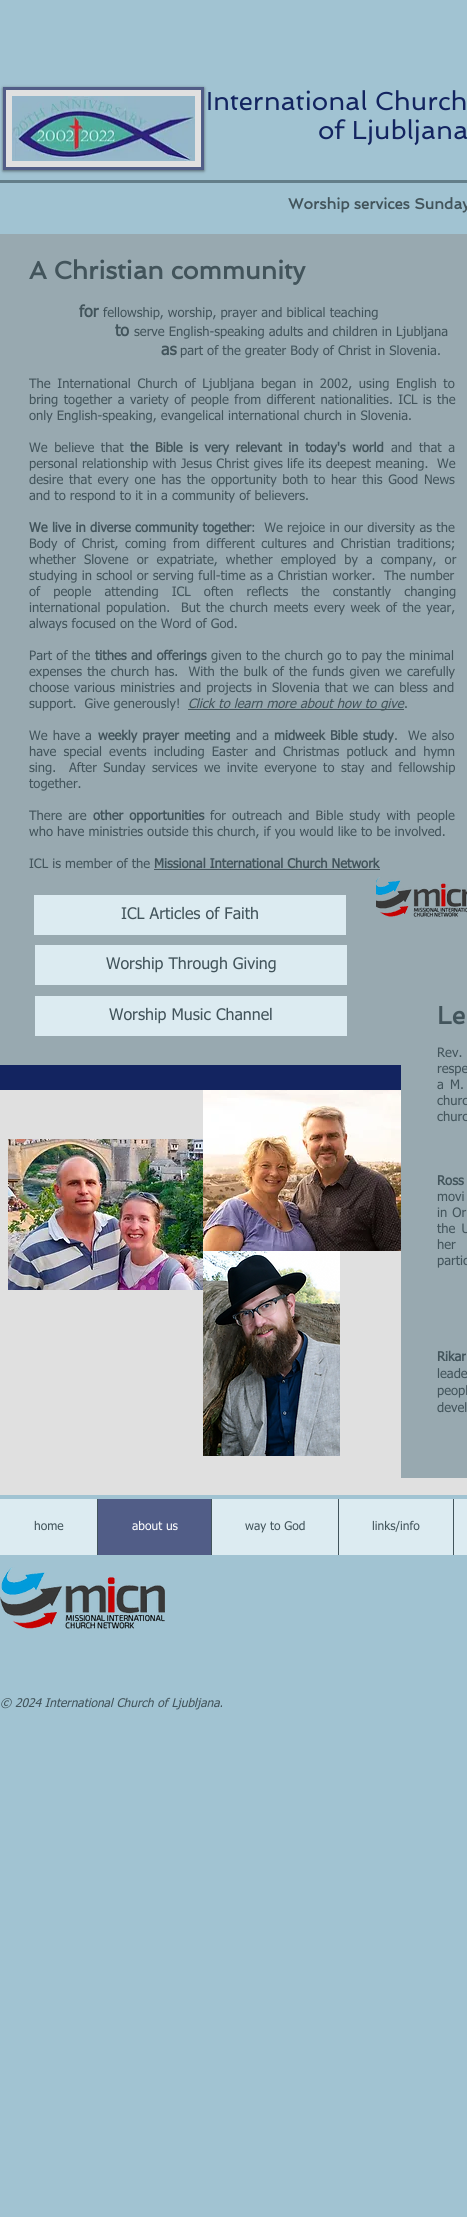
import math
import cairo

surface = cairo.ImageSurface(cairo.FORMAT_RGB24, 467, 2217)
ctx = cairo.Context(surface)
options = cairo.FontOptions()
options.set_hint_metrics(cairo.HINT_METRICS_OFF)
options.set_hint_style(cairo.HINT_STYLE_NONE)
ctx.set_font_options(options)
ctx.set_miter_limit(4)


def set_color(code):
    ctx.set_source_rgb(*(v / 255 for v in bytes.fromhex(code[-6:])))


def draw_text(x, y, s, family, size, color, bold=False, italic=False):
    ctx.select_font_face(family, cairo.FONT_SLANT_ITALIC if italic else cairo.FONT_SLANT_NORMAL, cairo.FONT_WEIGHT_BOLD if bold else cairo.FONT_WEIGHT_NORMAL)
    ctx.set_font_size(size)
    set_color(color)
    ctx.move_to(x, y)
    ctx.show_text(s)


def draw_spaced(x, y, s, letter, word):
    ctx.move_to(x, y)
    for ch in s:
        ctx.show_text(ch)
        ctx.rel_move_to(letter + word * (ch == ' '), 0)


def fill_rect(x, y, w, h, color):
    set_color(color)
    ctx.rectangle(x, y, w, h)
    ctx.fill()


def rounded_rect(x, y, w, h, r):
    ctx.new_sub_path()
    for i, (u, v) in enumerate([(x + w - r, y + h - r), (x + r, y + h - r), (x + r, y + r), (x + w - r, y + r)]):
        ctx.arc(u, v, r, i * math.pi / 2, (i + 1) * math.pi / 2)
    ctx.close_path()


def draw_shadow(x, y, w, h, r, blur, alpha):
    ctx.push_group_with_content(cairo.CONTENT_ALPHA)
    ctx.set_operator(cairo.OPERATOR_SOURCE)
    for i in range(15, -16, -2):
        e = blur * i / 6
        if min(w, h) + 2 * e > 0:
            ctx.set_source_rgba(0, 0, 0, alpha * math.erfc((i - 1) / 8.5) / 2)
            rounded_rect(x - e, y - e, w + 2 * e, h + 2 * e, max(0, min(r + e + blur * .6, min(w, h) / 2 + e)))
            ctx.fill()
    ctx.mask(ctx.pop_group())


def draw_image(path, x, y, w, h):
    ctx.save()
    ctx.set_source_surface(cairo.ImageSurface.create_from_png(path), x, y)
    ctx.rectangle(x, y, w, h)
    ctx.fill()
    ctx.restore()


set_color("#a1c3d2")
ctx.paint()
set_color("#000000")
draw_shadow(3, 88, 201, 83, 0, 1.5, 0.5)
set_color("#e0e0e0")
ctx.rectangle(4.5, 88.5, 198, 80)
ctx.fill_preserve()
set_color("#515d87")
ctx.set_line_width(3)
ctx.stroke()
draw_image("assets/img1.png", 12, 96, 183, 65)
draw_text(206, 110, "International Church", "Spinnaker", 26, "#132460")
draw_text(318, 139, "of Ljubljana", "Spinnaker", 26, "#132460")
fill_rect(0, 180, 467, 3, "#637e89")
draw_text(288, 209, "Worship services Sunday", "Spinnaker", 15, "#42545b", bold=True)
fill_rect(0, 234, 467, 831, "#98a9b0")
draw_text(29, 279, "A Christian community", "Spinnaker", 25, "#42545b", bold=True)
draw_text(79, 317, "for", "tahoma", 16, "#42545b", bold=True)
draw_text(103, 317, "fellowship, worship, prayer and biblical teaching", "tahoma", 13, "#42545b")
draw_text(115, 336, "to", "tahoma", 16, "#42545b", bold=True)
draw_text(134, 336, "serve English-speaking adults and children in Ljubljana", "tahoma", 13, "#42545b")
draw_text(161, 355, "as", "tahoma", 16, "#42545b", bold=True)
draw_text(180, 355, "part of the greater Body of Christ in Slovenia.", "tahoma", 13, "#42545b")
draw_spaced(29, 388, "The International Church of Ljubljana began in 2002, using English to", 0, 2.6)
draw_spaced(29, 404, "bring together a variety of people from different nationalities. ICL is the", 0, 1.4)
draw_text(29, 420, "only English-speaking, evangelical international church in Slovenia.", "tahoma", 13, "#42545b")
draw_spaced(29, 452, "We believe that", 0, 2.5)
ctx.select_font_face("tahoma", cairo.FONT_SLANT_NORMAL, cairo.FONT_WEIGHT_BOLD)
draw_spaced(130, 452, "the Bible is very relevant in today's world", 0, 2.5)
ctx.select_font_face("tahoma")
draw_spaced(391, 452, "and that a", 0, 2.6)
draw_spaced(29, 468, "personal relationship with Jesus Christ gives life its deepest meaning.  We", 0, 0.25)
draw_spaced(29, 484, "desire that every one has the opportunity both to hear this Good News", 0, 1.6)
draw_text(29, 500, "and to respond to it in a community of believers.", "tahoma", 13, "#42545b")
ctx.select_font_face("tahoma", cairo.FONT_SLANT_NORMAL, cairo.FONT_WEIGHT_BOLD)
draw_spaced(29, 532, "We live in diverse community together", 0, 0.25)
ctx.select_font_face("tahoma")
draw_spaced(251, 532, ":  We rejoice in our diversity as the", 0, 0.25)
draw_spaced(29, 548, "Body of Christ, coming from different cultures and Christian traditions;", 0, 2.5)
draw_spaced(29, 564, "whether Slovene or expatriate, whether employed by a company, or", 0, 4)
draw_spaced(29, 580, "studying in school or serving full-time as a Christian worker.  The number", 0, 0.25)
draw_spaced(29, 596, "of people attending ICL often reflects the constantly changing", 0, 9)
draw_spaced(29, 612, "international population.  But the church meets every week of the year,", 0, 1.4)
draw_text(29, 628, "always focused on the Word of God.", "tahoma", 13, "#42545b")
draw_spaced(29, 660, "Part of the", 0, 0.25)
ctx.select_font_face("tahoma", cairo.FONT_SLANT_NORMAL, cairo.FONT_WEIGHT_BOLD)
draw_spaced(95, 660, "tithes and offerings", 0, 0.25)
ctx.select_font_face("tahoma")
draw_spaced(211, 660, "given to the church go to pay the minimal", 0, 0.25)
draw_spaced(29, 676, "expenses the church has.  With the bulk of the funds given we carefully", 0, 1.1)
draw_spaced(29, 692, "choose various ministries and projects in Slovenia that we can bless and", 0, 1)
draw_text(29, 708, "support.  Give generously!", "tahoma", 13, "#42545b")
fill_rect(188, 709, 216, 1, "#42545b")
draw_text(188, 708, "Click to learn more about how to give", "tahoma", 13, "#42545b", italic=True)
draw_text(404, 708, ".", "tahoma", 13, "#42545b")
draw_spaced(29, 740, "We have a", 0, 1)
ctx.select_font_face("tahoma", cairo.FONT_SLANT_NORMAL, cairo.FONT_WEIGHT_BOLD)
draw_spaced(98, 740, "weekly prayer meeting", 0, 1)
ctx.select_font_face("tahoma")
draw_spaced(236, 740, "and a", 0, 1)
ctx.select_font_face("tahoma", cairo.FONT_SLANT_NORMAL, cairo.FONT_WEIGHT_BOLD)
draw_spaced(274, 740, "midweek Bible study", 0, 1)
ctx.select_font_face("tahoma")
draw_spaced(394, 740, ".  We also", 0, 1)
draw_spaced(29, 756, "have special events including Easter and Christmas potluck and hymn", 0, 3)
draw_spaced(29, 772, "sing.  After Sunday services we invite everyone to stay and fellowship", 0, 2.4)
draw_text(29, 788, "together.", "tahoma", 13, "#42545b")
draw_spaced(29, 820, "There are", 0, 2)
ctx.select_font_face("tahoma", cairo.FONT_SLANT_NORMAL, cairo.FONT_WEIGHT_BOLD)
draw_spaced(93, 820, "other opportunities", 0, 2)
ctx.select_font_face("tahoma")
draw_spaced(210, 820, "for outreach and Bible study with people", 0, 2)
draw_text(29, 836, "who have ministries outside this church, if you would like to be involved.", "tahoma", 13, "#42545b")
draw_text(29, 868, "ICL is member of the", "tahoma", 13, "#42545b")
draw_text(154, 868, "Missional International Church Network", "tahoma", 13, "#42545b", bold=True)
fill_rect(154, 869, 226, 1, "#42545b")
fill_rect(34, 895, 312, 40, "#dcebf1")
draw_text(121, 919, "ICL Articles of Faith", "tahoma", 16, "#42545b")
draw_image("assets/img2.png", 376, 877, 91, 40)
fill_rect(35, 945, 312, 40, "#dcebf1")
draw_text(106, 969, "Worship Through Giving", "tahoma", 16, "#42545b")
fill_rect(35, 996, 312, 40, "#dcebf1")
draw_text(109, 1020, "Worship Music Channel", "tahoma", 16, "#42545b")
fill_rect(0, 1065, 401, 25, "#132460")
draw_text(437, 1024, "Le", "Spinnaker", 25, "#42545b", bold=True)
draw_text(437, 1057, "Rev.", "tahoma", 13, "#42545b")
fill_rect(0, 1090, 467, 405, "#e0e0e0")
fill_rect(401, 1065, 66, 413, "#98a9b0")
set_color("#42545b")
draw_spaced(437, 1073, "respe", 0, 1)
draw_spaced(437, 1089, "a M.", 0, 2)
draw_spaced(437, 1105, "churc", 0, 2.4)
draw_text(437, 1121, "churc", "tahoma", 13, "#42545b")
draw_text(437, 1185, "Ross", "tahoma", 13, "#42545b", bold=True)
ctx.select_font_face("tahoma")
draw_spaced(437, 1201, "movi", 0, 1)
draw_spaced(437, 1217, "in Or", 0, 1)
draw_spaced(437, 1233, "the U", 0, 2)
draw_spaced(437, 1249, "her", 0, 6)
draw_text(437, 1265, "partic", "tahoma", 13, "#42545b")
draw_text(437, 1361, "Rikar", "tahoma", 13, "#42545b", bold=True)
draw_text(437, 1378, "leade", "tahoma", 13, "#42545b")
draw_text(437, 1395, "peopl", "tahoma", 13, "#42545b")
draw_text(437, 1412, "devel", "tahoma", 13, "#42545b")
draw_image("assets/img3.png", 8, 1139, 195, 151)
draw_image("assets/img4.png", 203, 1090, 198, 161)
draw_image("assets/img5.png", 203, 1251, 137, 205)
fill_rect(0, 1499, 467, 56, "#dcebf1")
draw_text(34, 1530, "home", "tahoma", 12, "#42545b")
fill_rect(98, 1499, 113, 56, "#515d87")
fill_rect(97, 1499, 1, 56, "#42545b")
draw_text(132, 1530, "about us", "tahoma", 12, "#ffffff")
fill_rect(211, 1499, 1, 56, "#42545b")
draw_text(245, 1530, "way to God", "tahoma", 12, "#42545b")
fill_rect(338, 1499, 1, 56, "#42545b")
draw_text(372, 1530, "links/info", "tahoma", 12, "#42545b")
fill_rect(453, 1499, 1, 56, "#42545b")
draw_image("assets/img6.png", 0, 1567, 165, 62)
draw_text(0, 1707, "© 2024 International Church of Ljubljana.", "tahoma", 12, "#42545b", italic=True)
surface.write_to_png("output.png")
